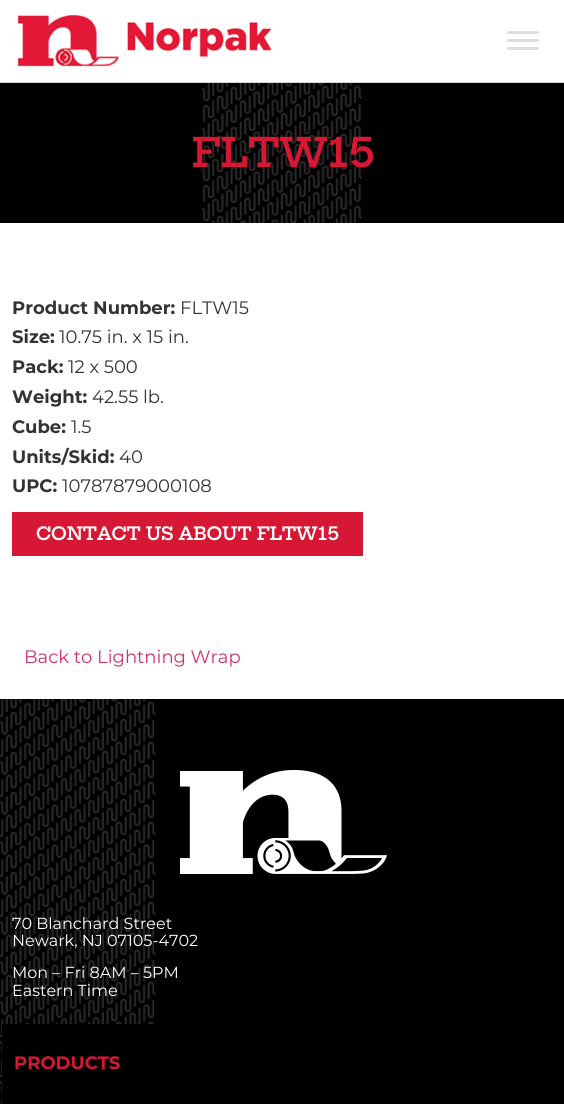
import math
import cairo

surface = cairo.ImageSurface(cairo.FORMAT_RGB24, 564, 1104)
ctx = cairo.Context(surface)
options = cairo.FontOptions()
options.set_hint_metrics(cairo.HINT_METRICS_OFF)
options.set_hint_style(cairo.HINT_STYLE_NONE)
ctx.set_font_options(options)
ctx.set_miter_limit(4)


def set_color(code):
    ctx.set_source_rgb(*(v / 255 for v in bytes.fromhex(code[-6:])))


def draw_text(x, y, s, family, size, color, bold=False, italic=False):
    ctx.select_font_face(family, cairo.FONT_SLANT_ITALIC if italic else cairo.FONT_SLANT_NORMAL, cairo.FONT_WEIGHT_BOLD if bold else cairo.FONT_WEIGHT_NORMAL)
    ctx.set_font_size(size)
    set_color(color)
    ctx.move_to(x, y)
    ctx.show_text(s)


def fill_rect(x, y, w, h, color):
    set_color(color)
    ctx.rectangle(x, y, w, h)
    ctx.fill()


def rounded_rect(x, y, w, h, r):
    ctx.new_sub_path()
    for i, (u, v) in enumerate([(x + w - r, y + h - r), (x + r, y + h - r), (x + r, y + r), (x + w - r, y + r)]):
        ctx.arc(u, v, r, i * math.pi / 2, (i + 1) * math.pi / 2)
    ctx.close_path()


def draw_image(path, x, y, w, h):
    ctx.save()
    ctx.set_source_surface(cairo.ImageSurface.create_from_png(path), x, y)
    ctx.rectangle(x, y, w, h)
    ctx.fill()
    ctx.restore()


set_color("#ffffff")
ctx.paint()
fill_rect(0, 82, 564, 1, "#d6d6d6")
draw_image("assets/img1.png", 17, 15, 255, 52)
set_color("#dddddd")
rounded_rect(507, 31, 32, 3, 1.5)
ctx.fill()
rounded_rect(507, 39, 32, 3, 1.5)
ctx.fill()
rounded_rect(507, 47, 32, 3, 1.5)
ctx.fill()
fill_rect(0, 83, 564, 140, "#000000")
draw_image("assets/img2.png", 201, 83, 161, 140)
draw_text(192, 167, "FLTW15", "Hepta Slab SemiBold", 40, "#d61834")
draw_text(12, 314, "Product Number:", "Montserrat", 18, "#333333", bold=True)
draw_text(180, 314, "FLTW15", "Montserrat", 18, "#333333")
draw_text(12, 343, "Size:", "Montserrat", 18, "#333333", bold=True)
draw_text(59, 343, "10.75 in. x 15 in.", "Montserrat", 18, "#333333")
draw_text(12, 373, "Pack:", "Montserrat", 18, "#333333", bold=True)
draw_text(68, 373, "12 x 500", "Montserrat", 18, "#333333")
draw_text(12, 403, "Weight:", "Montserrat", 18, "#333333", bold=True)
draw_text(92, 403, "42.55 lb.", "Montserrat", 18, "#333333")
draw_text(12, 433, "Cube:", "Montserrat", 18, "#333333", bold=True)
draw_text(71, 433, "1.5", "Montserrat", 18, "#333333")
draw_text(12, 463, "Units/Skid:", "Montserrat", 18, "#333333", bold=True)
draw_text(119, 463, "40", "Montserrat", 18, "#333333")
draw_text(12, 492, "UPC:", "Montserrat", 18, "#333333", bold=True)
draw_text(62, 492, "10787879000108", "Montserrat", 18, "#333333")
fill_rect(12, 512, 351, 44, "#d61834")
draw_text(36, 540, "CONTACT US ABOUT FLTW15", "Hepta Slab SemiBold", 18, "#ffffff")
draw_text(24, 663, "Back to Lightning Wrap", "Montserrat", 18, "#cc3366")
fill_rect(0, 699, 564, 405, "#000000")
draw_image("assets/img3.png", 0, 699, 156, 405)
draw_image("assets/img4.png", 180, 770, 207, 104)
draw_text(12, 929, "70 Blanchard Street", "Montserrat", 16, "#ffffff")
draw_text(12, 946, "Newark, NJ 07105-4702", "Montserrat", 16, "#ffffff")
draw_text(12, 978, "Mon – Fri 8AM – 5PM", "Montserrat", 16, "#ffffff")
draw_text(12, 996, "Eastern Time", "Montserrat", 16, "#ffffff")
fill_rect(2, 1024, 154, 80, "#000000")
draw_text(14, 1069, "PRODUCTS", "Montserrat", 18, "#d61834", bold=True)
surface.write_to_png("output.png")
